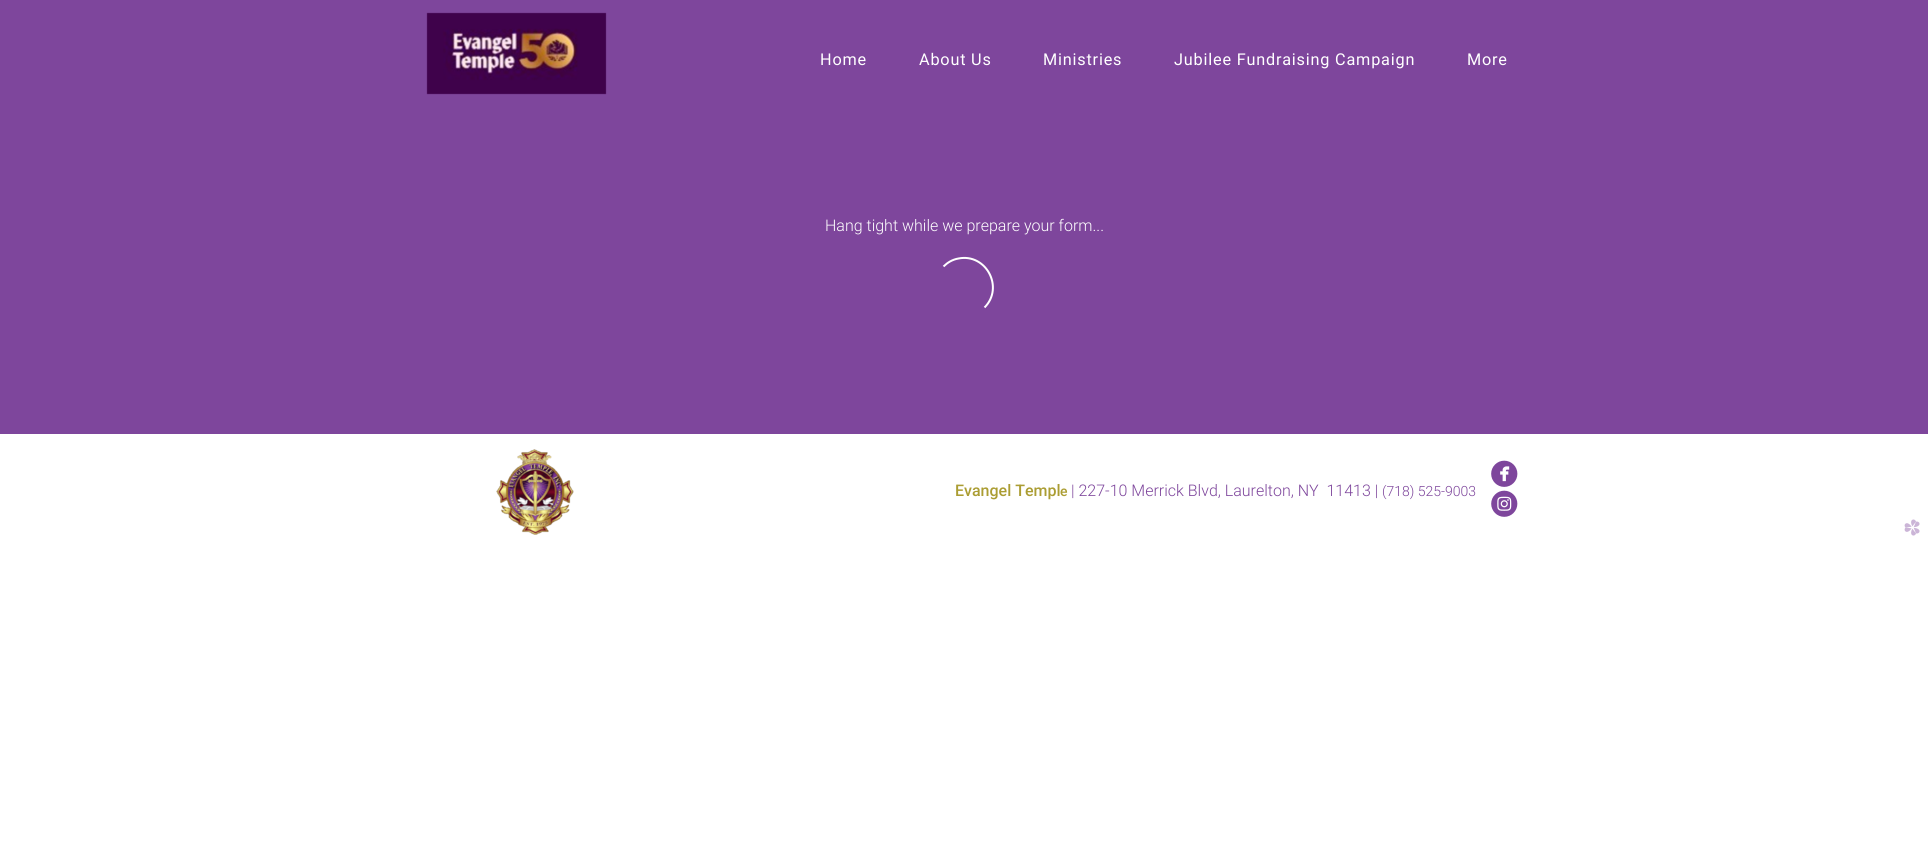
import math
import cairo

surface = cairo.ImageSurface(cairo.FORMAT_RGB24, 1928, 850)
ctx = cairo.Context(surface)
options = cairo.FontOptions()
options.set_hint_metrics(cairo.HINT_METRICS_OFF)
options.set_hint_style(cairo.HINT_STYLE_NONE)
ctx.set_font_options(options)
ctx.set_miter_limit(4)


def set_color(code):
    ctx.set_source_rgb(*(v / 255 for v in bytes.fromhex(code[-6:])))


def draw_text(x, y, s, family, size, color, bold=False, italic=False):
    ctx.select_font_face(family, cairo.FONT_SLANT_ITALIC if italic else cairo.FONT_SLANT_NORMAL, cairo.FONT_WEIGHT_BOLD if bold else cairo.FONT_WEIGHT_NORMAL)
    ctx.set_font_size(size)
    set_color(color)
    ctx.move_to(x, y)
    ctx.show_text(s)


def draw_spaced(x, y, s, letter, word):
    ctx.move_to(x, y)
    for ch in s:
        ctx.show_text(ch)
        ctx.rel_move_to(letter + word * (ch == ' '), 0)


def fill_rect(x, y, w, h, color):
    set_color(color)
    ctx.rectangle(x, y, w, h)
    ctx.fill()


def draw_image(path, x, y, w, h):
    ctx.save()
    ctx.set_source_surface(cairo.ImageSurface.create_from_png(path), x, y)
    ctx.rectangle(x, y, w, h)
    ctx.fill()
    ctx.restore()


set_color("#ffffff")
ctx.paint()
fill_rect(0, 0, 1928, 434, "#7e469c")
draw_image("assets/img1.png", 426, 12, 181, 83)
ctx.select_font_face("Roboto")
ctx.set_font_size(16.25)
set_color("#ffffff")
draw_spaced(820, 65, "Home", 0.8, 0)
draw_spaced(919, 65, "About Us", 0.8, 0)
draw_spaced(1043, 65, "Ministries", 0.8, 0)
draw_spaced(1174, 65, "Jubilee Fundraising Campaign", 0.8, 0)
draw_spaced(1467, 65, "More", 0.8, 0)
draw_text(825, 231, "Hang tight while we prepare your form...", "Roboto Light", 16, "#ffffff")
ctx.new_path()
ctx.move_to(943.5, 266.5)
ctx.curve_to(947.5, 262.5, 952.5, 259.5, 958.5, 258.5)
ctx.curve_to(986, 253, 1004.5, 287.5, 984.5, 307.5)
ctx.stroke()
draw_image("assets/img2.png", 496, 449, 78, 86)
draw_text(955, 496, "Evangel Templ", "Roboto Medium", 16, "#ab9d33")
draw_text(1060, 496, "e", "Roboto Medium", 14, "#ab9d33")
draw_text(1071, 496, "| 227-10 Merrick Blvd, Laurelton, NY  11413 |", "Roboto Light", 16, "#7e469c")
draw_text(1382, 496, "(718) 525-9003", "Roboto Light", 14, "#7e469c")
draw_image("assets/img3.png", 1491, 460, 27, 27)
draw_image("assets/img4.png", 1491, 490, 27, 27)
draw_image("assets/img5.png", 1904, 519, 16, 17)
surface.write_to_png("output.png")
